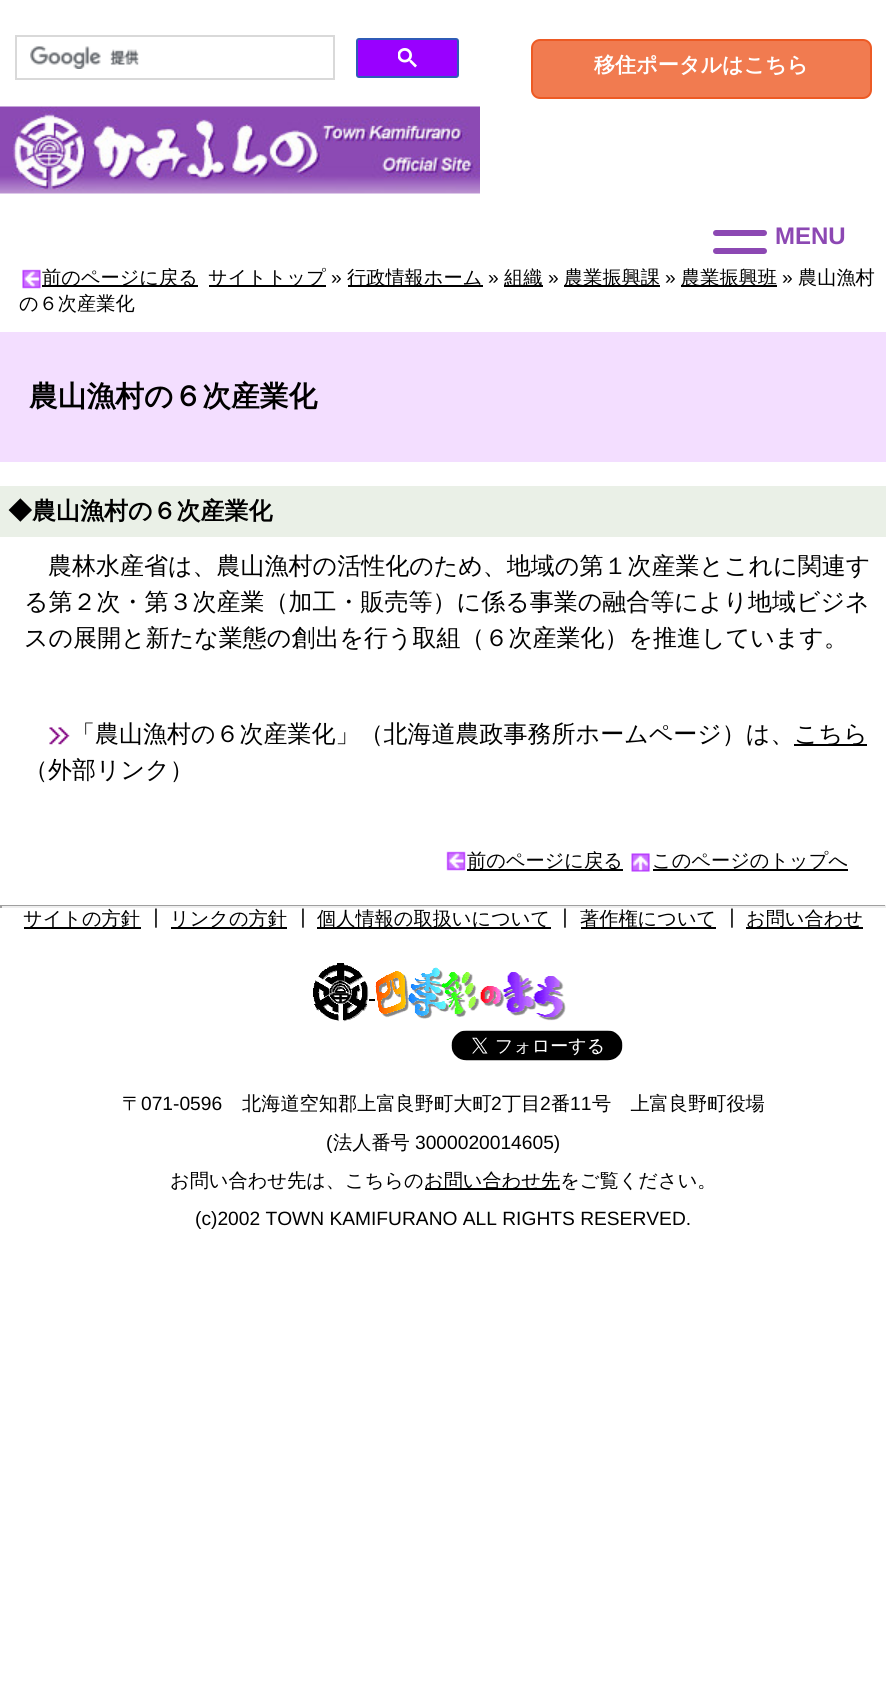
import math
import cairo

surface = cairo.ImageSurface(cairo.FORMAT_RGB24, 886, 1683)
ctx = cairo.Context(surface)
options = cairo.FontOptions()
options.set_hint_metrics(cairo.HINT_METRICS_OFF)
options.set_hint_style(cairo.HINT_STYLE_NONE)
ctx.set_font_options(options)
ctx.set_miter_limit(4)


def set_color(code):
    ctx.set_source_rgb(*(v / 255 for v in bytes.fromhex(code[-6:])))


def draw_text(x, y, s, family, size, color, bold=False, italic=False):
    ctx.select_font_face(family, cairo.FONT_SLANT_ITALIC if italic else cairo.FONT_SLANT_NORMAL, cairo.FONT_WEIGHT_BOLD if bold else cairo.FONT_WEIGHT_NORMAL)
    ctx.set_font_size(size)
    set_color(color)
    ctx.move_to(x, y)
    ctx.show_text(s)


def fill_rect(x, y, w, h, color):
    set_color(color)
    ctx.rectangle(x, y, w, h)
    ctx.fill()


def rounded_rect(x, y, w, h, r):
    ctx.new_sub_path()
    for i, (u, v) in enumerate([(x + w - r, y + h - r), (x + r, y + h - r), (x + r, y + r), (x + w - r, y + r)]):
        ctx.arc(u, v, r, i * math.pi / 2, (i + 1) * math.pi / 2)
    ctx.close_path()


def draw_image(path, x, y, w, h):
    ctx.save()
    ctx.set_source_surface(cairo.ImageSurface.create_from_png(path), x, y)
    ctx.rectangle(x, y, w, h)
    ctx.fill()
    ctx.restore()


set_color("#ffffff")
ctx.paint()
ctx.rectangle(16, 36, 318, 43)
set_color("#d9d9d9")
ctx.stroke()
draw_image("assets/img1.png", 30, 46, 109, 23)
set_color("#9900ff")
rounded_rect(357, 39, 101, 38, 2)
ctx.fill_preserve()
set_color("#2f5bb7")
ctx.stroke()
draw_image("assets/img2.png", 398, 48, 19, 20)
set_color("#f17b50")
rounded_rect(532, 40, 339, 58, 8)
ctx.fill_preserve()
set_color("#ed5a24")
ctx.stroke()
draw_text(594, 72, "移住ポータルはこちら", "WenQuanYi Zen Hei", 21.1, "#ffffff", bold=True)
draw_image("assets/img3.png", 0, 106, 480, 88)
set_color("#8c48b3")
rounded_rect(713, 230, 54, 6, 3)
ctx.fill()
draw_text(775, 244, "MENU", "Liberation Sans", 24, "#8c48b3", bold=True)
rounded_rect(713, 248, 54, 6, 3)
ctx.fill()
draw_image("assets/img4.png", 22, 269, 19, 20)
fill_rect(42, 285, 156, 2, "#000000")
draw_text(42, 284, "前のページに戻る", "WenQuanYi Zen Hei Medium", 19.2, "#000000")
fill_rect(209, 285, 117, 2, "#000000")
draw_text(208, 284, "サイトトップ", "WenQuanYi Zen Hei Medium", 19.2, "#000000")
draw_text(331, 284, "»", "Liberation Sans", 19.2, "#000000")
fill_rect(348, 285, 135, 2, "#000000")
draw_text(347, 284, "行政情報ホーム", "WenQuanYi Zen Hei Medium", 19.2, "#000000")
draw_text(488, 284, "»", "Liberation Sans", 19.2, "#000000")
fill_rect(504, 285, 39, 2, "#000000")
draw_text(504, 284, "組織", "WenQuanYi Zen Hei Medium", 19.2, "#000000")
draw_text(548, 284, "»", "Liberation Sans", 19.2, "#000000")
fill_rect(564, 285, 96, 2, "#000000")
draw_text(564, 284, "農業振興課", "WenQuanYi Zen Hei Medium", 19.2, "#000000")
draw_text(665, 284, "»", "Liberation Sans", 19.2, "#000000")
fill_rect(681, 285, 96, 2, "#000000")
draw_text(681, 284, "農業振興班", "WenQuanYi Zen Hei Medium", 19.2, "#000000")
draw_text(782, 284, "»", "Liberation Sans", 19.2, "#000000")
draw_text(798, 284, "農山漁村", "WenQuanYi Zen Hei Medium", 19.2, "#000000")
draw_text(19, 310, "の６次産業化", "WenQuanYi Zen Hei Medium", 19.2, "#000000")
fill_rect(0, 332, 886, 130, "#f3deff")
draw_text(29, 406, "農山漁村の６次産業化", "WenQuanYi Zen Hei", 28.75, "#000000", bold=True)
fill_rect(0, 486, 886, 51, "#eaf0e7")
draw_text(8, 519, "◆農山漁村の６次産業化", "WenQuanYi Zen Hei", 24, "#000000", bold=True)
draw_text(48, 574, "農林水産省は、農山漁村の活性化のため、地域の第１次産業とこれに関連す", "WenQuanYi Zen Hei Medium", 24, "#000000")
draw_text(24, 610, "る第２次・第３次産業（加工・販売等）に係る事業の融合等により地域ビジネ", "WenQuanYi Zen Hei Medium", 24, "#000000")
draw_text(24, 646, "スの展開と新たな業態の創出を行う取組（６次産業化）を推進しています。", "WenQuanYi Zen Hei Medium", 24, "#000000")
draw_image("assets/img5.png", 49, 727, 21, 18)
draw_text(71, 742, "「農山漁村の６次産業化」（北海道農政事務所ホームページ）は、", "WenQuanYi Zen Hei Medium", 24, "#000000")
fill_rect(794, 744, 73, 2, "#000000")
draw_text(794, 742, "こちら", "WenQuanYi Zen Hei Medium", 24, "#000000")
draw_text(24, 778, "（外部リンク）", "WenQuanYi Zen Hei Medium", 24, "#000000")
draw_image("assets/img6.png", 446, 851, 20, 20)
fill_rect(467, 869, 156, 2, "#000000")
draw_text(467, 867, "前のページに戻る", "WenQuanYi Zen Hei Medium", 19.2, "#000000")
draw_image("assets/img7.png", 631, 853, 19, 19)
fill_rect(653, 869, 195, 2, "#000000")
draw_text(652, 867, "このページのトップへ", "WenQuanYi Zen Hei Medium", 19.2, "#000000")
fill_rect(0, 905, 886, 1, "#9f9f9f")
fill_rect(885, 905, 1, 3, "#eeeeee")
fill_rect(0, 906, 886, 2, "#eeeeee")
fill_rect(0, 905, 2, 3, "#9f9f9f")
fill_rect(24, 927, 117, 2, "#000000")
draw_text(23, 925, "サイトの方針", "WenQuanYi Zen Hei Medium", 19.2, "#000000")
draw_text(146, 925, "┃", "WenQuanYi Zen Hei Medium", 19.2, "#000000")
fill_rect(171, 927, 116, 2, "#000000")
draw_text(170, 925, "リンクの方針", "WenQuanYi Zen Hei Medium", 19.2, "#000000")
draw_text(293, 925, "┃", "WenQuanYi Zen Hei Medium", 19.2, "#000000")
fill_rect(317, 927, 234, 2, "#000000")
draw_text(317, 925, "個人情報の取扱いについて", "WenQuanYi Zen Hei Medium", 19.2, "#000000")
draw_text(555, 925, "┃", "WenQuanYi Zen Hei Medium", 19.2, "#000000")
fill_rect(581, 927, 135, 2, "#000000")
draw_text(580, 925, "著作権について", "WenQuanYi Zen Hei Medium", 19.2, "#000000")
draw_text(722, 925, "┃", "WenQuanYi Zen Hei Medium", 19.2, "#000000")
fill_rect(746, 927, 117, 2, "#000000")
draw_text(746, 925, "お問い合わせ", "WenQuanYi Zen Hei Medium", 19.2, "#000000")
draw_image("assets/img8.png", 313, 963, 56, 59)
fill_rect(369, 999, 6, 2, "#000000")
draw_image("assets/img9.png", 375, 967, 191, 54)
draw_image("assets/img10.png", 451, 1030, 172, 31)
draw_text(122, 1110, "〒", "WenQuanYi Zen Hei Medium", 19.2, "#000000")
draw_text(141, 1110, "071-0596", "Liberation Sans", 19.2, "#000000")
draw_text(242, 1110, "北海道空知郡上富良野町大町", "WenQuanYi Zen Hei Medium", 19.2, "#000000")
draw_text(491, 1110, "2", "Liberation Sans", 19.2, "#000000")
draw_text(502, 1110, "丁目", "WenQuanYi Zen Hei Medium", 19.2, "#000000")
draw_text(540, 1110, "2", "Liberation Sans", 19.2, "#000000")
draw_text(551, 1110, "番", "WenQuanYi Zen Hei Medium", 19.2, "#000000")
draw_text(570, 1110, "11", "Liberation Sans", 19.2, "#000000")
draw_text(592, 1110, "号　上富良野町役場", "WenQuanYi Zen Hei Medium", 19.2, "#000000")
draw_text(326, 1149, "(", "Liberation Sans", 19.2, "#000000")
draw_text(333, 1149, "法人番号", "WenQuanYi Zen Hei Medium", 19.2, "#000000")
draw_text(415, 1149, "3000020014605)", "Liberation Sans", 19.2, "#000000")
draw_text(170, 1187, "お問い合わせ先は、こちらの", "WenQuanYi Zen Hei Medium", 19.2, "#000000")
fill_rect(425, 1188, 135, 2, "#000000")
draw_text(424, 1187, "お問い合わせ先をご覧ください。", "WenQuanYi Zen Hei Medium", 19.2, "#000000")
draw_text(195, 1225, "(c)2002 TOWN KAMIFURANO ALL RIGHTS RESERVED.", "Liberation Sans", 19.2, "#000000")
surface.write_to_png("output.png")
